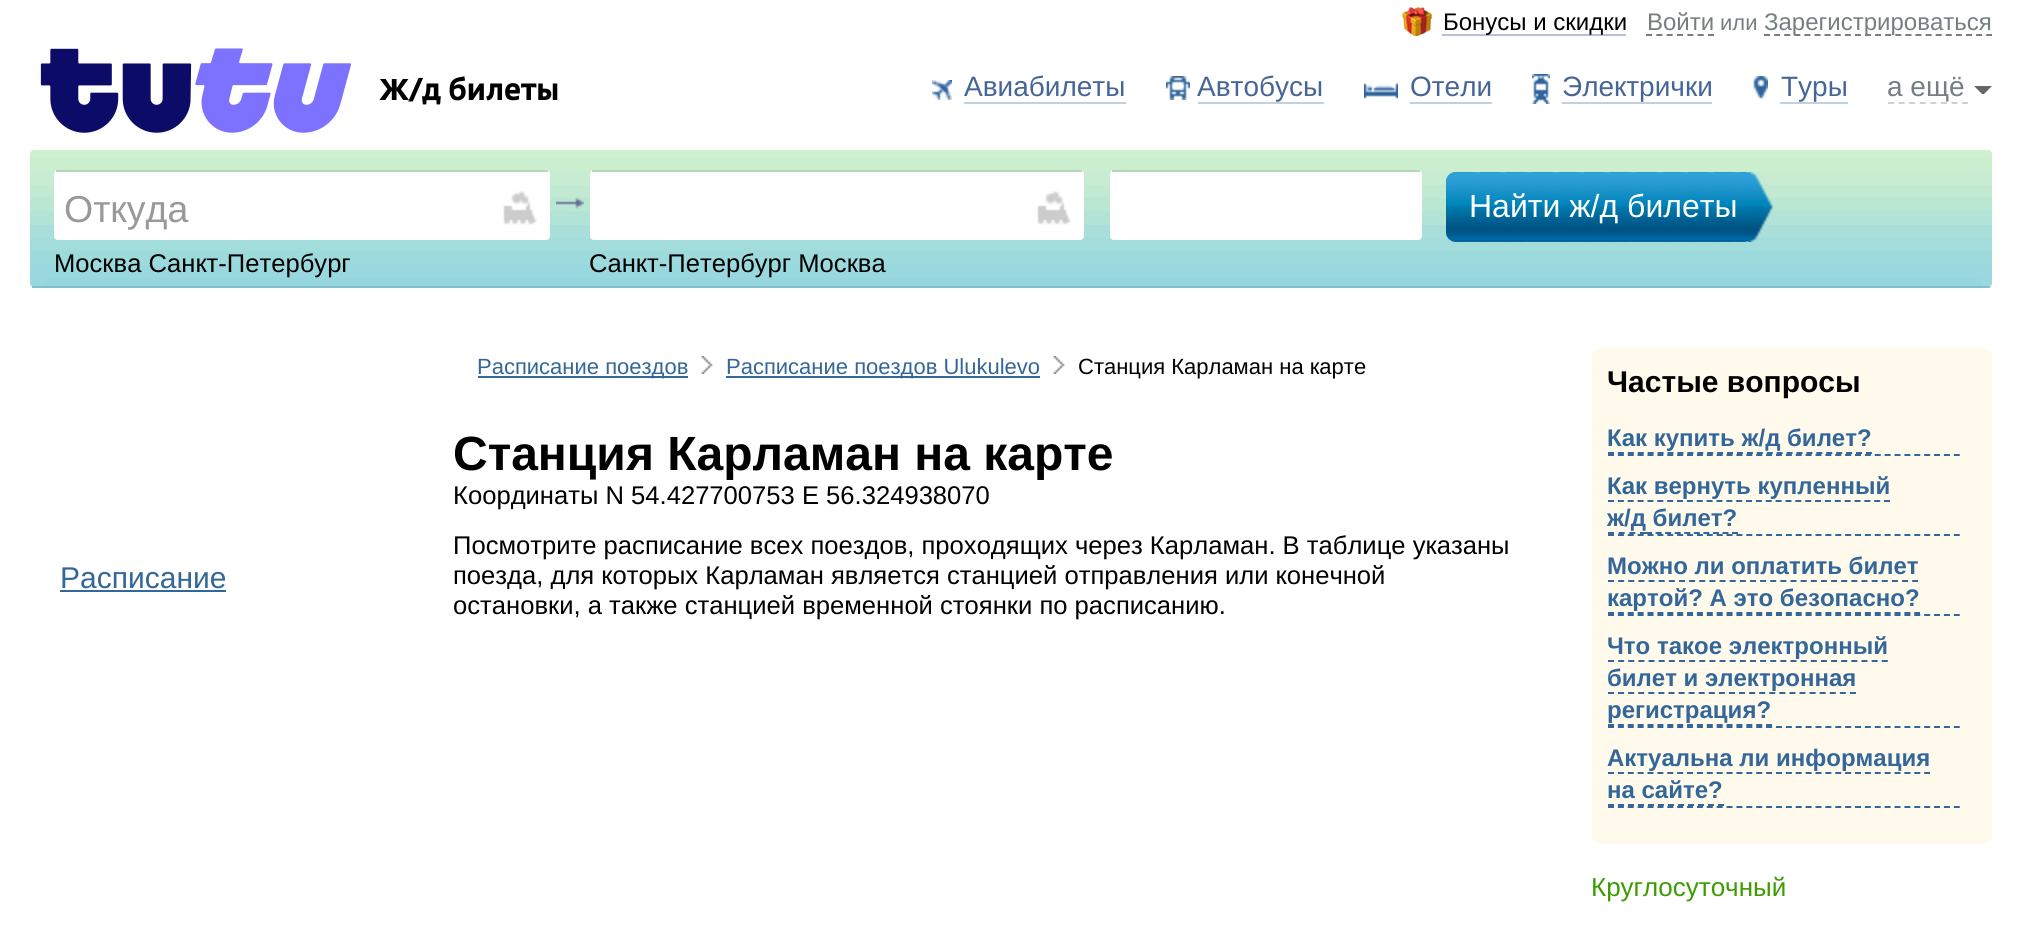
import math
import cairo

surface = cairo.ImageSurface(cairo.FORMAT_RGB24, 2031, 932)
ctx = cairo.Context(surface)
options = cairo.FontOptions()
options.set_hint_metrics(cairo.HINT_METRICS_OFF)
options.set_hint_style(cairo.HINT_STYLE_NONE)
ctx.set_font_options(options)
ctx.set_miter_limit(4)


def set_color(code):
    ctx.set_source_rgb(*(v / 255 for v in bytes.fromhex(code[-6:])))


def draw_text(x, y, s, family, size, color, bold=False, italic=False):
    ctx.select_font_face(family, cairo.FONT_SLANT_ITALIC if italic else cairo.FONT_SLANT_NORMAL, cairo.FONT_WEIGHT_BOLD if bold else cairo.FONT_WEIGHT_NORMAL)
    ctx.set_font_size(size)
    set_color(color)
    ctx.move_to(x, y)
    ctx.show_text(s)


def fill_rect(x, y, w, h, color):
    set_color(color)
    ctx.rectangle(x, y, w, h)
    ctx.fill()


def rounded_rect(x, y, w, h, r):
    ctx.new_sub_path()
    for i, (u, v) in enumerate([(x + w - r, y + h - r), (x + r, y + h - r), (x + r, y + r), (x + w - r, y + r)]):
        ctx.arc(u, v, r, i * math.pi / 2, (i + 1) * math.pi / 2)
    ctx.close_path()


def draw_shadow(x, y, w, h, r, blur, alpha):
    ctx.push_group_with_content(cairo.CONTENT_ALPHA)
    ctx.set_operator(cairo.OPERATOR_SOURCE)
    for i in range(15, -16, -2):
        e = blur * i / 6
        if min(w, h) + 2 * e > 0:
            ctx.set_source_rgba(0, 0, 0, alpha * math.erfc((i - 1) / 8.5) / 2)
            rounded_rect(x - e, y - e, w + 2 * e, h + 2 * e, max(0, min(r + e + blur * .6, min(w, h) / 2 + e)))
            ctx.fill()
    ctx.mask(ctx.pop_group())


def draw_image(path, x, y, w, h):
    ctx.save()
    ctx.set_source_surface(cairo.ImageSurface.create_from_png(path), x, y)
    ctx.rectangle(x, y, w, h)
    ctx.fill()
    ctx.restore()


set_color("#ffffff")
ctx.paint()
fill_rect(1442, 34, 184, 2, "#b5c1d6")
draw_image("assets/img1.png", 1402, 7, 30, 29)
draw_text(1443, 30, "Бонусы и скидки", "Liberation Sans", 24, "#000000")
ctx.new_path()
ctx.move_to(1646, 35)
ctx.line_to(1714, 35)
set_color("#777e80")
ctx.set_dash([6, 4.34])
ctx.stroke()
draw_text(1647, 30, "Войти", "Liberation Sans", 24, "#777e80")
draw_text(1720, 30, "или", "Liberation Sans", 22, "#777e80")
ctx.new_path()
ctx.move_to(1764, 35)
ctx.line_to(1992, 35)
ctx.set_dash([6, 4.1])
ctx.stroke()
draw_text(1764, 30, "Зарегистрироваться", "Liberation Sans", 24, "#777e80")
set_color("#d1f1ce")
rounded_rect(30, 150, 1962, 138, 4)
ctx.fill()
fill_rect(32, 286, 1958, 2, "#81bfca")
fill_rect(478, 376, 210, 2, "#336699")
draw_image("assets/img12.png", 701, 356, 12, 18)
fill_rect(726, 376, 314, 2, "#336699")
draw_image("assets/img12.png", 1053, 356, 12, 18)
set_color("#fffaeb")
rounded_rect(1592, 348, 400, 496, 8)
ctx.fill()
ctx.new_path()
ctx.move_to(1608, 453)
ctx.line_to(1872, 453)
set_color("#336699")
ctx.set_dash([6, 3.92])
ctx.stroke()
ctx.new_path()
ctx.move_to(1608, 455)
ctx.line_to(1960, 455)
ctx.set_dash([6, 3.88])
ctx.stroke()
ctx.new_path()
ctx.move_to(1608, 501)
ctx.line_to(1890, 501)
ctx.set_dash([6, 3.86])
ctx.stroke()
ctx.new_path()
ctx.move_to(1608, 533)
ctx.line_to(1646, 533)
ctx.set_dash([6, 4.66])
ctx.stroke()
ctx.new_path()
ctx.move_to(1646, 533)
ctx.line_to(1738, 533)
ctx.set_dash([6, 3.56])
ctx.stroke()
ctx.new_path()
ctx.move_to(1608, 535)
ctx.line_to(1960, 535)
ctx.set_dash([6, 3.88])
ctx.stroke()
ctx.save()
ctx.new_path()
ctx.move_to(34, 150)
ctx.line_to(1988, 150)
ctx.curve_to(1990, 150, 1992, 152, 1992, 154)
ctx.line_to(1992, 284)
ctx.curve_to(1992, 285, 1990, 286, 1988, 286)
ctx.line_to(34, 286)
ctx.curve_to(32, 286, 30, 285, 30, 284)
ctx.line_to(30, 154)
ctx.curve_to(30, 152, 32, 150, 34, 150)
ctx.close_path()
ctx.clip()
set_color("#93d5df")
draw_shadow(-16, 218, 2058, 240, 0, 40, 1)
ctx.restore()
draw_image("assets/img2.png", 40, 48, 312, 85)
draw_text(380, 100, "Ж/д билеты", "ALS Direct", 30, "#000000", bold=True)
fill_rect(964, 102, 162, 2, "#c1d1e0")
draw_image("assets/img3.png", 932, 80, 20, 20)
draw_text(964, 96, "Авиабилеты", "Liberation Sans", 28, "#466598")
fill_rect(1198, 102, 126, 2, "#c1d1e0")
draw_image("assets/img4.png", 1166, 76, 24, 24)
draw_text(1197, 96, "Автобусы", "Liberation Sans", 28, "#466598")
fill_rect(1410, 102, 82, 2, "#c1d1e0")
draw_image("assets/img5.png", 1364, 83, 34, 16)
draw_text(1410, 96, "Отели", "Liberation Sans", 28, "#466598")
fill_rect(1562, 102, 150, 2, "#c1d1e0")
draw_image("assets/img6.png", 1532, 74, 18, 30)
draw_text(1562, 96, "Электрички", "Liberation Sans", 28, "#466598")
fill_rect(1780, 102, 68, 2, "#c1d1e0")
draw_image("assets/img7.png", 1753, 76, 15, 23)
draw_text(1781, 96, "Туры", "Liberation Sans", 28, "#466598")
ctx.new_path()
ctx.move_to(1888, 103)
ctx.line_to(1968, 103)
set_color("#d0d0d0")
ctx.set_dash([6, 4.58])
ctx.stroke()
draw_text(1887, 96, "а ещё", "Liberation Sans", 28, "#777e80")
set_color("#666666")
ctx.new_path()
ctx.move_to(1974, 86)
ctx.line_to(1992, 86)
ctx.line_to(1984, 94)
ctx.line_to(1982, 94)
ctx.close_path()
ctx.fill()
set_color("#ffffff")
rounded_rect(54, 170, 496, 70, 4)
ctx.fill()
fill_rect(56, 170, 492, 2, "#b7d7ba")
draw_text(64, 222, "Откуда", "Liberation Sans", 37.5, "#999999")
draw_image("assets/img8.png", 503, 191, 34, 34)
draw_text(54, 272, "Москва Санкт-Петербург", "Liberation Sans", 25.6, "#000000")
draw_image("assets/img9.png", 556, 197, 28, 12)
set_color("#ffffff")
rounded_rect(1110, 170, 312, 70, 4)
ctx.fill()
fill_rect(1112, 170, 308, 2, "#b7d7ba")
set_color("#2581ad")
rounded_rect(1446, 172, 308, 70, 10)
ctx.fill()
draw_image("assets/img10.png", 1446, 172, 305, 70)
draw_text(1469, 217, "Найти ж/д билеты", "Liberation Sans", 32, "#ffffff")
draw_image("assets/img11.png", 1748, 172, 26, 70)
rounded_rect(590, 170, 494, 70, 4)
ctx.fill()
fill_rect(592, 170, 490, 2, "#b7d7ba")
draw_image("assets/img8.png", 1037, 191, 34, 34)
draw_text(589, 272, "Санкт-Петербург Москва", "Liberation Sans", 25.6, "#000000")
draw_text(477, 374, "Расписание поездов", "Liberation Sans", 22, "#336699")
draw_text(726, 374, "Расписание поездов Ulukulevo", "Liberation Sans", 22, "#336699")
draw_text(1078, 374, "Станция Карламан на карте", "Liberation Sans", 22, "#000000")
draw_text(60, 588, "Расписание", "Liberation Sans", 30, "#336699")
fill_rect(60, 590, 166, 2, "#336699")
draw_text(453, 470, "Станция Карламан на карте", "Liberation Sans", 48, "#000000", bold=True)
draw_text(453, 504, "Координаты N 54.427700753 E 56.324938070", "Liberation Sans", 25.6, "#000000")
draw_text(453, 554, "Посмотрите расписание всех поездов, проходящих через Карламан. В таблице указаны", "Liberation Sans", 25.6, "#000000")
draw_text(453, 584, "поезда, для которых Карламан является станцией отправления или конечной", "Liberation Sans", 25.6, "#000000")
draw_text(453, 614, "остановки, а также станцией временной стоянки по расписанию.", "Liberation Sans", 25.6, "#000000")
draw_text(1607, 392, "Частые вопросы", "Liberation Sans", 30, "#000000", bold=True)
draw_text(1607, 446, "Как купить ж/д билет?", "Liberation Sans", 24, "#336699", bold=True)
draw_text(1607, 494, "Как вернуть купленный", "Liberation Sans", 24, "#336699", bold=True)
draw_text(1607, 526, "ж/д билет?", "Liberation Sans", 24, "#336699", bold=True)
draw_text(1607, 574, "Можно ли оплатить билет", "Liberation Sans", 24, "#336699", bold=True)
ctx.new_path()
ctx.move_to(1608, 581)
ctx.line_to(1918, 581)
ctx.set_dash([6, 4.14])
ctx.stroke()
draw_text(1607, 606, "картой? А это безопасно?", "Liberation Sans", 24, "#336699", bold=True)
ctx.new_path()
ctx.move_to(1608, 613)
ctx.line_to(1920, 613)
ctx.set_dash([6, 3.88])
ctx.stroke()
ctx.new_path()
ctx.move_to(1608, 615)
ctx.line_to(1960, 615)
ctx.stroke()
draw_text(1607, 654, "Что такое электронный", "Liberation Sans", 24, "#336699", bold=True)
ctx.new_path()
ctx.move_to(1608, 661)
ctx.line_to(1888, 661)
ctx.set_dash([6, 4.14])
ctx.stroke()
draw_text(1607, 686, "билет и электронная", "Liberation Sans", 24, "#336699", bold=True)
ctx.new_path()
ctx.move_to(1608, 693)
ctx.line_to(1856, 693)
ctx.set_dash([6, 4.08])
ctx.stroke()
draw_text(1607, 718, "регистрация?", "Liberation Sans", 24, "#336699", bold=True)
ctx.new_path()
ctx.move_to(1608, 725)
ctx.line_to(1772, 725)
ctx.set_dash([6, 3.88])
ctx.stroke()
ctx.new_path()
ctx.move_to(1608, 727)
ctx.line_to(1960, 727)
ctx.stroke()
draw_text(1607, 766, "Актуальна ли информация", "Liberation Sans", 24, "#336699", bold=True)
ctx.new_path()
ctx.move_to(1608, 773)
ctx.line_to(1930, 773)
ctx.stroke()
draw_text(1607, 798, "на сайте?", "Liberation Sans", 24, "#336699", bold=True)
ctx.new_path()
ctx.move_to(1608, 805)
ctx.line_to(1724, 805)
ctx.set_dash([6, 4])
ctx.stroke()
ctx.new_path()
ctx.move_to(1608, 807)
ctx.line_to(1960, 807)
ctx.set_dash([6, 3.88])
ctx.stroke()
draw_text(1591, 896, "Круглосуточный", "Liberation Sans", 26, "#3c9c01")
surface.write_to_png("output.png")
